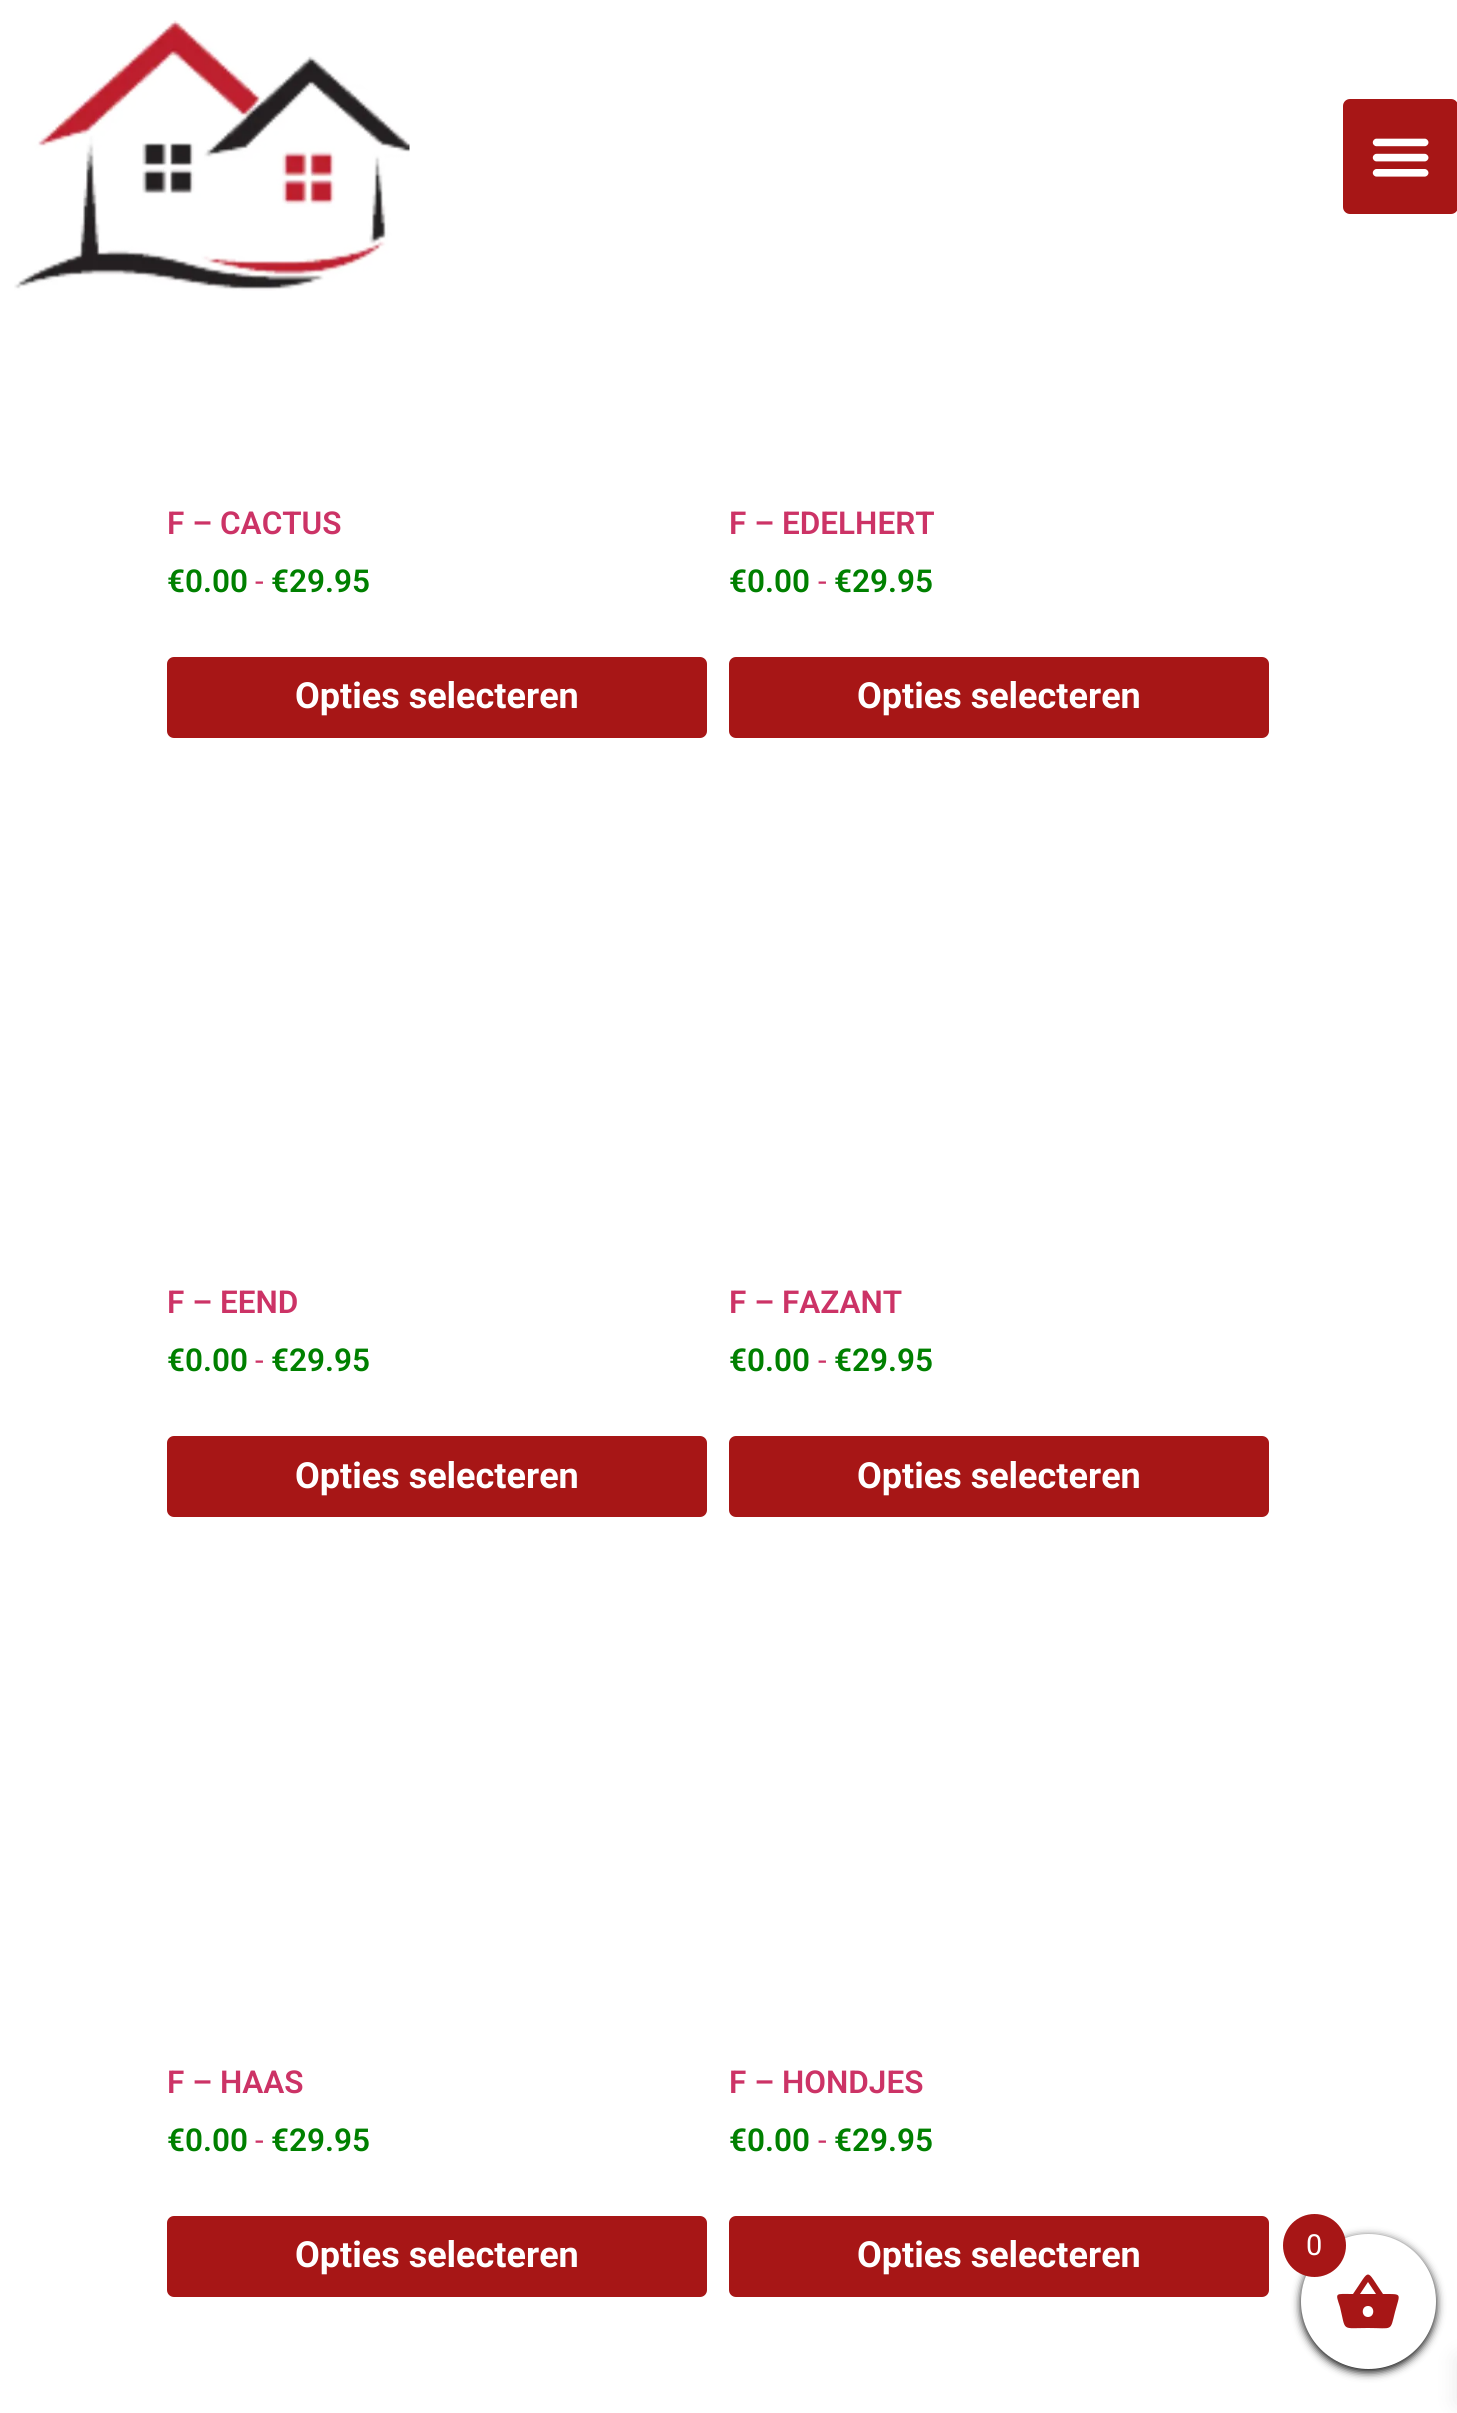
import math
import cairo

surface = cairo.ImageSurface(cairo.FORMAT_RGB24, 1457, 2413)
ctx = cairo.Context(surface)
options = cairo.FontOptions()
options.set_hint_metrics(cairo.HINT_METRICS_OFF)
options.set_hint_style(cairo.HINT_STYLE_NONE)
ctx.set_font_options(options)
ctx.set_miter_limit(4)


def set_color(code):
    ctx.set_source_rgb(*(v / 255 for v in bytes.fromhex(code[-6:])))


def draw_text(x, y, s, family, size, color, bold=False, italic=False):
    ctx.select_font_face(family, cairo.FONT_SLANT_ITALIC if italic else cairo.FONT_SLANT_NORMAL, cairo.FONT_WEIGHT_BOLD if bold else cairo.FONT_WEIGHT_NORMAL)
    ctx.set_font_size(size)
    set_color(color)
    ctx.move_to(x, y)
    ctx.show_text(s)


def rounded_rect(x, y, w, h, r):
    ctx.new_sub_path()
    for i, (u, v) in enumerate([(x + w - r, y + h - r), (x + r, y + h - r), (x + r, y + r), (x + w - r, y + r)]):
        ctx.arc(u, v, r, i * math.pi / 2, (i + 1) * math.pi / 2)
    ctx.close_path()


def draw_shadow(x, y, w, h, r, blur, alpha):
    ctx.push_group_with_content(cairo.CONTENT_ALPHA)
    ctx.set_operator(cairo.OPERATOR_SOURCE)
    for i in range(15, -16, -2):
        e = blur * i / 6
        if min(w, h) + 2 * e > 0:
            ctx.set_source_rgba(0, 0, 0, alpha * math.erfc((i - 1) / 8.5) / 2)
            rounded_rect(x - e, y - e, w + 2 * e, h + 2 * e, max(0, min(r + e + blur * .6, min(w, h) / 2 + e)))
            ctx.fill()
    ctx.mask(ctx.pop_group())


def draw_image(path, x, y, w, h):
    ctx.save()
    ctx.set_source_surface(cairo.ImageSurface.create_from_png(path), x, y)
    ctx.rectangle(x, y, w, h)
    ctx.fill()
    ctx.restore()


set_color("#ffffff")
ctx.paint()
draw_image("assets/img1.png", 14, 20, 396, 271)
set_color("#a71616")
rounded_rect(1343, 99, 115, 115, 7)
ctx.fill()
draw_image("assets/img2.png", 1372, 138, 57, 39)
draw_text(167, 534, "F – CACTUS", "Roboto SemiBold", 31.5, "#cc3366")
draw_text(167, 592, "€0.00", "Roboto SemiBold", 31.5, "#008000")
draw_text(255, 592, "-", "Roboto", 31, "#cc3366")
draw_text(271, 592, "€29.95", "Roboto SemiBold", 31.5, "#008000")
set_color("#a71616")
rounded_rect(167, 657, 540, 81, 7)
ctx.fill()
draw_text(295, 708, "Opties selecteren", "Roboto", 36, "#ffffff", bold=True)
draw_text(729, 534, "F – EDELHERT", "Roboto SemiBold", 31.5, "#cc3366")
draw_text(729, 592, "€0.00", "Roboto SemiBold", 31.5, "#008000")
draw_text(818, 592, "-", "Roboto", 31, "#cc3366")
draw_text(834, 592, "€29.95", "Roboto SemiBold", 31.5, "#008000")
set_color("#a71616")
rounded_rect(729, 657, 540, 81, 7)
ctx.fill()
draw_text(857, 708, "Opties selecteren", "Roboto", 36, "#ffffff", bold=True)
draw_text(167, 1313, "F – EEND", "Roboto SemiBold", 31.5, "#cc3366")
draw_text(167, 1371, "€0.00", "Roboto SemiBold", 31.5, "#008000")
draw_text(255, 1371, "-", "Roboto", 31, "#cc3366")
draw_text(271, 1371, "€29.95", "Roboto SemiBold", 31.5, "#008000")
set_color("#a71616")
rounded_rect(167, 1436, 540, 81, 7)
ctx.fill()
draw_text(295, 1488, "Opties selecteren", "Roboto", 36, "#ffffff", bold=True)
draw_text(729, 1313, "F – FAZANT", "Roboto SemiBold", 31.5, "#cc3366")
draw_text(729, 1371, "€0.00", "Roboto SemiBold", 31.5, "#008000")
draw_text(818, 1371, "-", "Roboto", 31, "#cc3366")
draw_text(834, 1371, "€29.95", "Roboto SemiBold", 31.5, "#008000")
set_color("#a71616")
rounded_rect(729, 1436, 540, 81, 7)
ctx.fill()
draw_text(857, 1488, "Opties selecteren", "Roboto", 36, "#ffffff", bold=True)
draw_text(167, 2093, "F – HAAS", "Roboto SemiBold", 31.5, "#cc3366")
draw_text(167, 2151, "€0.00", "Roboto SemiBold", 31.5, "#008000")
draw_text(255, 2151, "-", "Roboto", 31, "#cc3366")
draw_text(271, 2151, "€29.95", "Roboto SemiBold", 31.5, "#008000")
set_color("#a71616")
rounded_rect(167, 2216, 540, 81, 7)
ctx.fill()
draw_text(295, 2267, "Opties selecteren", "Roboto", 36, "#ffffff", bold=True)
draw_text(729, 2093, "F – HONDJES", "Roboto SemiBold", 31.5, "#cc3366")
draw_text(729, 2151, "€0.00", "Roboto SemiBold", 31.5, "#008000")
draw_text(818, 2151, "-", "Roboto", 31, "#cc3366")
draw_text(834, 2151, "€29.95", "Roboto SemiBold", 31.5, "#008000")
set_color("#a71616")
rounded_rect(729, 2216, 540, 81, 7)
ctx.fill()
draw_text(857, 2267, "Opties selecteren", "Roboto", 36, "#ffffff", bold=True)
set_color("#000000")
draw_shadow(1301, 2237, 135, 135, 67.5, 4.5, 1)
draw_shadow(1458, 2358, 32, 45, 0, 11, 0.1)
set_color("#ffffff")
ctx.arc(1368.5, 2301.5, 67.5, 0, 2 * math.pi)
ctx.fill()
set_color("#a71616")
ctx.new_path()
ctx.move_to(1368, 2317)
ctx.curve_to(1375, 2317, 1375, 2306, 1368, 2306)
ctx.curve_to(1361, 2306, 1361, 2317, 1368, 2317)
ctx.close_path()
ctx.move_to(1360, 2294)
ctx.line_to(1376, 2294)
ctx.line_to(1368, 2282)
ctx.close_path()
ctx.move_to(1383, 2294)
ctx.curve_to(1403, 2294, 1400, 2293, 1395, 2312)
ctx.curve_to(1390, 2332, 1393, 2328, 1368, 2328)
ctx.curve_to(1341, 2328, 1346, 2332, 1340, 2307)
ctx.curve_to(1335, 2292, 1335, 2294, 1353, 2294)
ctx.curve_to(1371, 2268, 1365, 2268, 1383, 2294)
ctx.close_path()
ctx.fill()
ctx.arc(1314.5, 2245.5, 31.5, 0, 2 * math.pi)
ctx.fill()
draw_text(1306, 2255, "0", "Roboto", 29, "#ffffff")
surface.write_to_png("output.png")
